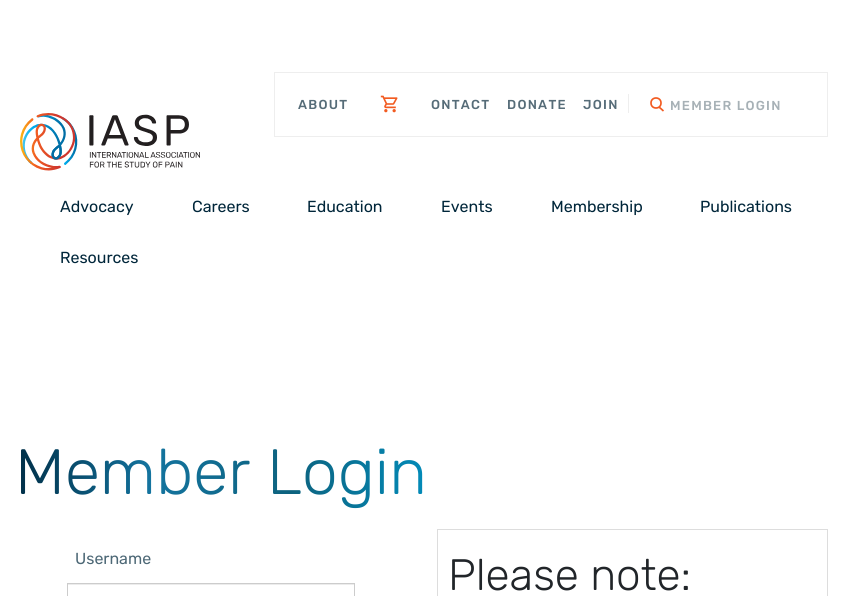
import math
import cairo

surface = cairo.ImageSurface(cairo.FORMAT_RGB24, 843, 596)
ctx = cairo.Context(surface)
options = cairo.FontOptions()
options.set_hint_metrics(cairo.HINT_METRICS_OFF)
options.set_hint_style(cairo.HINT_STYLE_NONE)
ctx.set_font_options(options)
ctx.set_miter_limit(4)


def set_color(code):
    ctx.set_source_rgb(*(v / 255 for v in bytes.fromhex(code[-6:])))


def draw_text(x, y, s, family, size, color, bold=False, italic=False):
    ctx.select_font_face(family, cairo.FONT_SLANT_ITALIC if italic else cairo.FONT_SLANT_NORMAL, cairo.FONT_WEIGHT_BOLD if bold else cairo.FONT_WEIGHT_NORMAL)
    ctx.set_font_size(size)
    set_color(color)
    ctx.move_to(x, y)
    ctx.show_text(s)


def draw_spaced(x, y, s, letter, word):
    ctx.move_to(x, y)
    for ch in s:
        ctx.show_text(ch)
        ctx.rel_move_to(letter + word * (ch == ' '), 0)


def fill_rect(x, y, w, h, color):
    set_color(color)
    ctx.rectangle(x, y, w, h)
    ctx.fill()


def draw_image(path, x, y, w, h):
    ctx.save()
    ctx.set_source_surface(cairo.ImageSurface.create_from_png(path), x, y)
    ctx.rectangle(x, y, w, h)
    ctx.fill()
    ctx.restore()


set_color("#ffffff")
ctx.paint()
ctx.rectangle(274.5, 72.5, 553, 64)
set_color("#eeeeee")
ctx.set_line_width(1)
ctx.stroke()
ctx.select_font_face("Rubik Medium")
ctx.set_font_size(13)
set_color("#566c78")
draw_spaced(298, 109, "ABOUT", 1.25, 0)
draw_image("assets/img1.png", 380, 95, 18, 18)
draw_spaced(431, 109, "ONTACT", 1.25, 0)
draw_spaced(507, 109, "DONATE", 1.25, 0)
draw_spaced(583, 109, "JOIN", 1.25, 0)
fill_rect(628, 94, 1, 19, "#eeeeee")
ctx.new_path()
ctx.arc(656, 103, 5, 0, 2 * math.pi)
set_color("#f25b21")
ctx.set_line_width(1.7)
ctx.stroke()
ctx.new_path()
ctx.move_to(663.5, 111)
ctx.line_to(659, 107)
ctx.stroke()
set_color("#a7b1b6")
draw_spaced(670, 110, "MEMBER LOGIN", 1.25, 0)
draw_image("assets/img2.png", 20, 113, 180, 58)
draw_text(60, 212, "Advocacy", "Rubik", 16, "#00263a")
draw_text(192, 212, "Careers", "Rubik", 16, "#00263a")
draw_text(307, 212, "Education", "Rubik", 16, "#00263a")
draw_text(441, 212, "Events", "Rubik", 16, "#00263a")
draw_text(551, 212, "Membership", "Rubik", 16, "#00263a")
draw_text(700, 212, "Publications", "Rubik", 16, "#00263a")
draw_text(60, 263, "Resources", "Rubik", 16, "#00263a")
ctx.select_font_face("Rubik Light")
ctx.set_font_size(64)
gradient = cairo.LinearGradient(15, 472, 427, 472)
gradient.add_color_stop_rgba(0, 0, 0.18, 0.275, 1)
gradient.add_color_stop_rgba(0.33, 0.078, 0.455, 0.624, 1)
gradient.add_color_stop_rgba(0.67, 0.051, 0.384, 0.494, 1)
gradient.add_color_stop_rgba(1, 0.008, 0.545, 0.725, 1)
ctx.set_source(gradient)
ctx.move_to(15, 494)
ctx.show_text("Member Login")
draw_text(75, 564, "Username", "Rubik", 16, "#4d6876")
fill_rect(68, 584, 286, 1, "#ececec")
ctx.rectangle(67.5, 583.5, 287, 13)
set_color("#cccccc")
ctx.set_line_width(1)
ctx.stroke()
ctx.rectangle(437.5, 529.5, 390, 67)
set_color("#dddddd")
ctx.stroke()
draw_text(448, 590, "Please note:", "Rubik Light", 44, "#212529")
surface.write_to_png("output.png")
